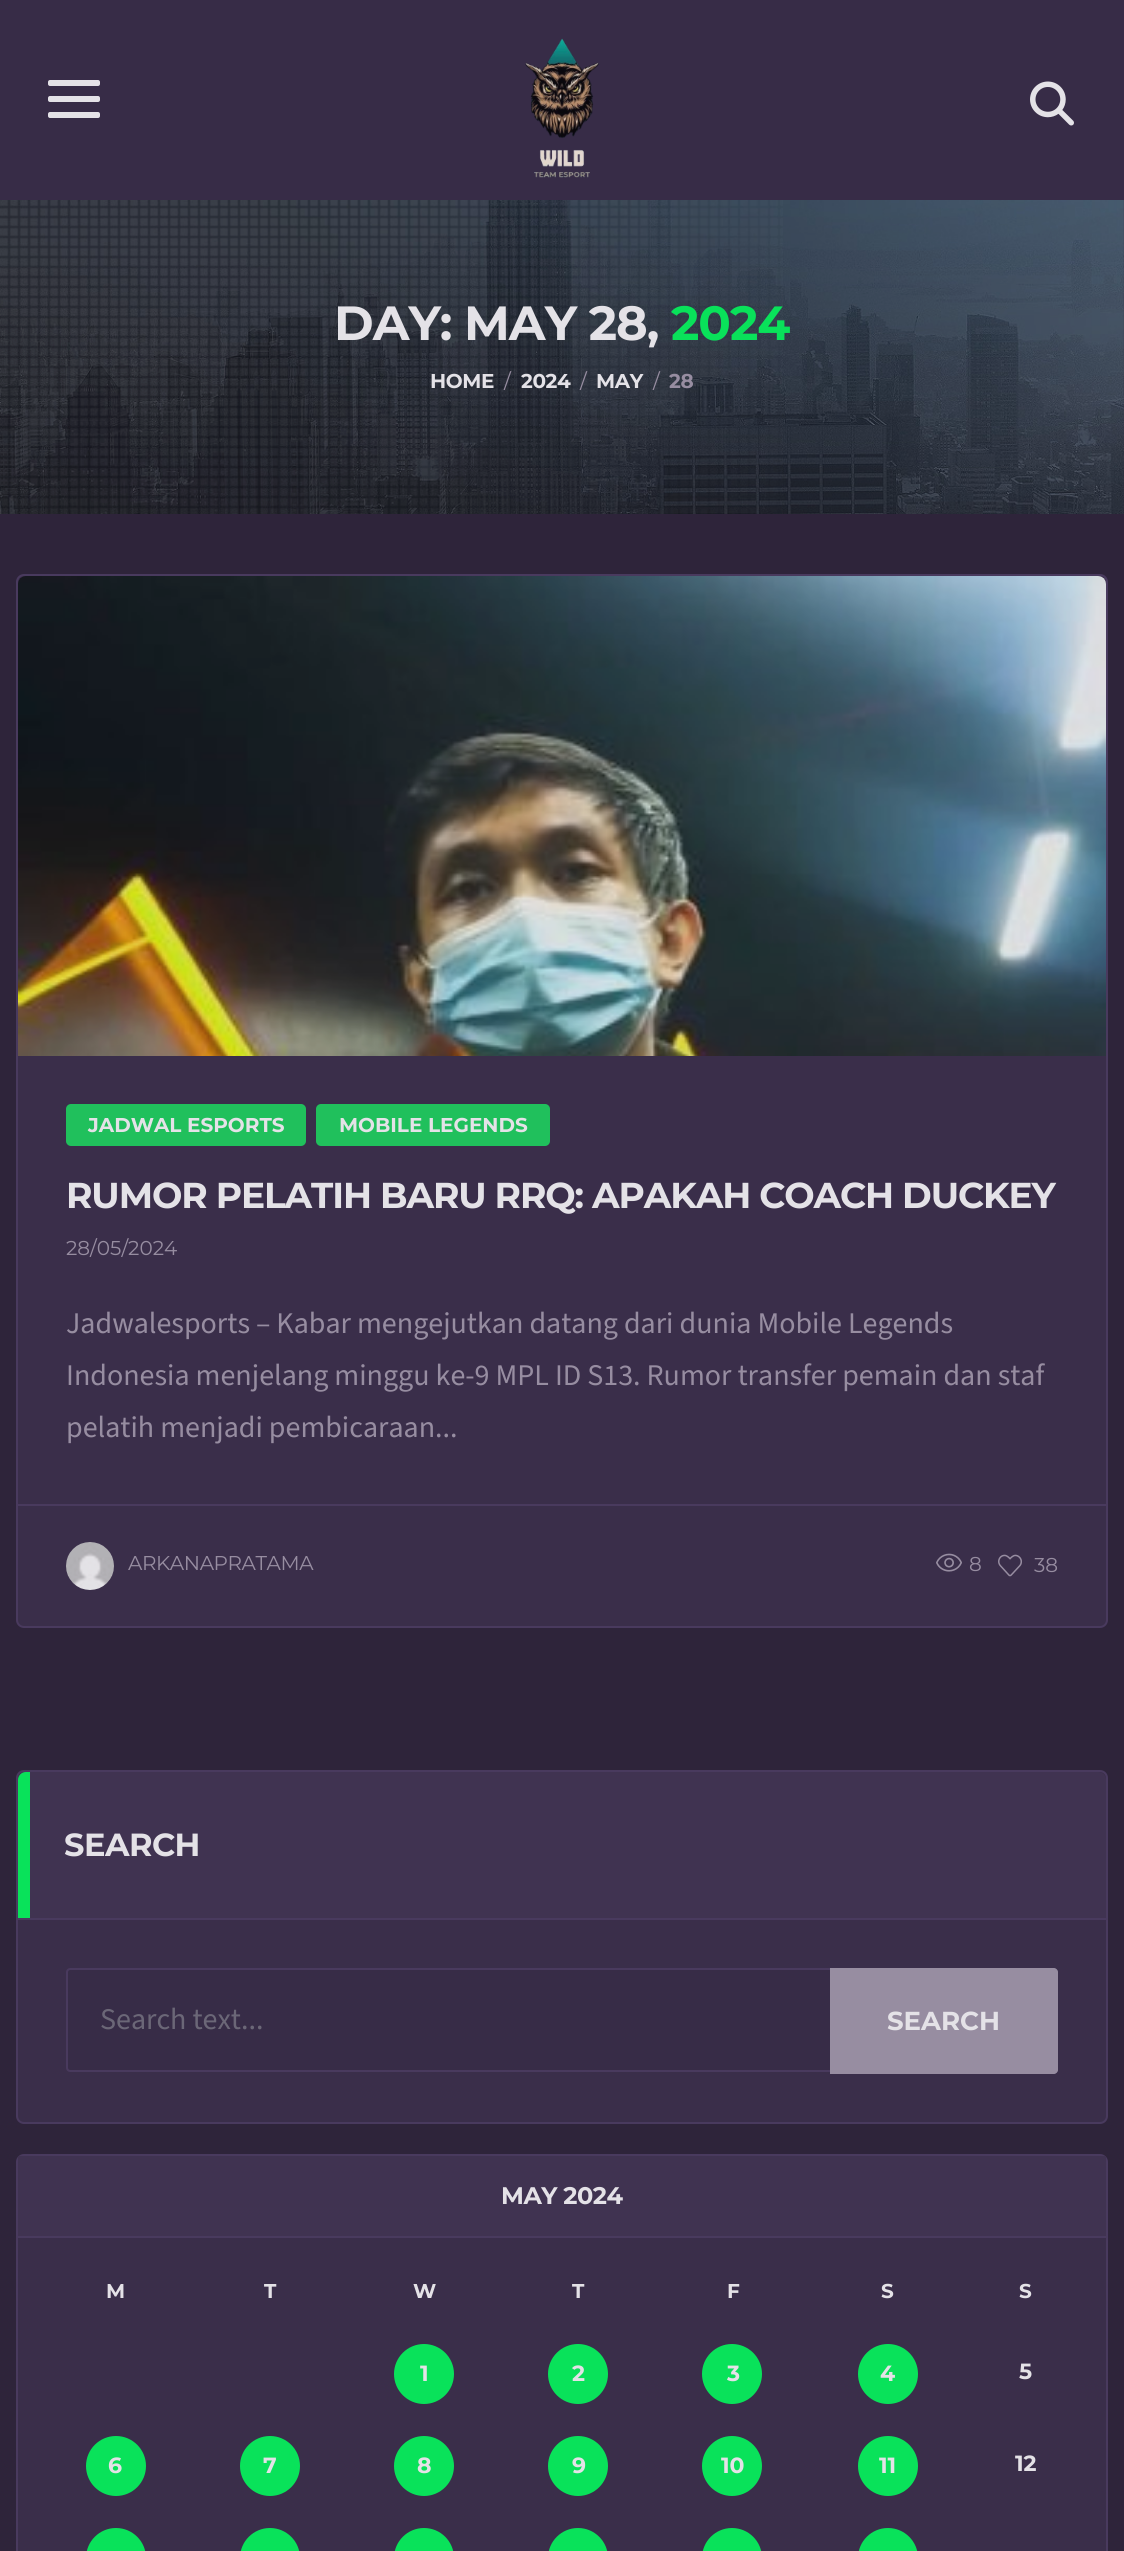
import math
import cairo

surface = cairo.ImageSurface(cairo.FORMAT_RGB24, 1124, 2551)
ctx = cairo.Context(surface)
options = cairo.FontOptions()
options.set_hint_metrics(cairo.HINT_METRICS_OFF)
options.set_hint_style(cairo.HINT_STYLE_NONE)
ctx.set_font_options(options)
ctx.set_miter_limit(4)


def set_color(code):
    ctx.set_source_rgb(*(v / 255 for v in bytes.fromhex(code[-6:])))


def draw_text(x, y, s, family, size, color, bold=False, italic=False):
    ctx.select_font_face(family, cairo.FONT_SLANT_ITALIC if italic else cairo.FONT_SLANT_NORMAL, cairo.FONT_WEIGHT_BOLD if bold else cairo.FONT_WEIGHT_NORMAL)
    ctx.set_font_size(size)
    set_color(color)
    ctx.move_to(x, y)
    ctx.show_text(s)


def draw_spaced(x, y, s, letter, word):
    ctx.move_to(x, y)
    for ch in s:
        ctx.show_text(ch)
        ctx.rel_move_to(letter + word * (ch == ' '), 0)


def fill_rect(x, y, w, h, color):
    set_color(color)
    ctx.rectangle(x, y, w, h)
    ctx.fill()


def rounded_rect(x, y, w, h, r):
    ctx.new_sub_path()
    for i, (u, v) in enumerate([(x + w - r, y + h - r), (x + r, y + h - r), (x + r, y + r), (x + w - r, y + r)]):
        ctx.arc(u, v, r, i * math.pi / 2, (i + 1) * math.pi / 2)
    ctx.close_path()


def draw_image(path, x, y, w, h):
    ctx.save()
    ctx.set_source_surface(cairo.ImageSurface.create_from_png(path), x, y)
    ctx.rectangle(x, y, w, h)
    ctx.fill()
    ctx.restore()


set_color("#2e243a")
ctx.paint()
fill_rect(0, 0, 1124, 200, "#372c47")
draw_image("assets/img1.png", 525, 38, 74, 140)
set_color("#e4e2e7")
rounded_rect(48, 80, 52, 6, 2)
ctx.fill()
rounded_rect(48, 96, 52, 6, 2)
ctx.fill()
rounded_rect(48, 112, 52, 6, 2)
ctx.fill()
draw_image("assets/img2.png", 1030, 81, 44, 45)
draw_image("assets/img3.png", 0, 200, 1124, 314)
draw_image("assets/img4.png", 0, 200, 783, 314)
ctx.select_font_face("Montserrat", cairo.FONT_SLANT_NORMAL, cairo.FONT_WEIGHT_BOLD)
ctx.set_font_size(48)
draw_spaced(334, 340, "DAY: MAY 28,", -1, 0)
set_color("#09e25a")
draw_spaced(671, 340, "2024", -1, 0)
ctx.set_font_size(20)
set_color("#e4e2e7")
draw_spaced(430, 388, "HOME", -0.4, 0)
ctx.select_font_face("Montserrat")
set_color("#978da1")
draw_spaced(504, 388, "/", -0.4, 0)
ctx.select_font_face("Montserrat", cairo.FONT_SLANT_NORMAL, cairo.FONT_WEIGHT_BOLD)
set_color("#e4e2e7")
draw_spaced(521, 388, "2024", -0.4, 0)
ctx.select_font_face("Montserrat")
set_color("#978da1")
draw_spaced(580, 388, "/", -0.4, 0)
ctx.select_font_face("Montserrat", cairo.FONT_SLANT_NORMAL, cairo.FONT_WEIGHT_BOLD)
set_color("#e4e2e7")
draw_spaced(596, 388, "MAY", -0.4, 0)
ctx.select_font_face("Montserrat")
set_color("#978da1")
draw_spaced(653, 388, "/", -0.4, 0)
ctx.select_font_face("Montserrat", cairo.FONT_SLANT_NORMAL, cairo.FONT_WEIGHT_BOLD)
draw_spaced(669, 388, "28", -0.4, 0)
set_color("#3a2e4a")
rounded_rect(17, 575, 1090, 1052, 7)
ctx.fill_preserve()
set_color("#493a5e")
ctx.stroke()
draw_image("assets/img5.png", 18, 576, 1088, 480)
set_color("#20c05c")
rounded_rect(66, 1104, 240, 42, 5)
ctx.fill()
draw_text(88, 1132, "JADWAL ESPORTS", "Montserrat", 20, "#e4e2e7", bold=True)
set_color("#20c05c")
rounded_rect(316, 1104, 234, 42, 5)
ctx.fill()
draw_text(339, 1132, "MOBILE LEGENDS", "Montserrat", 20, "#e4e2e7", bold=True)
ctx.set_font_size(36)
draw_spaced(66, 1208, "RUMOR PELATIH BARU RRQ: APAKAH COACH DUCKEY", -1.1, 0)
draw_text(66, 1255, "28/05/2024", "Montserrat", 20, "#978da1")
draw_text(66, 1333, "Jadwalesports – Kabar mengejutkan datang dari dunia Mobile Legends", "Source Sans 3", 30, "#978da1")
draw_text(66, 1385, "Indonesia menjelang minggu ke-9 MPL ID S13. Rumor transfer pemain dan staf", "Source Sans 3", 30, "#978da1")
draw_text(66, 1437, "pelatih menjadi pembicaraan...", "Source Sans 3", 30, "#978da1")
fill_rect(18, 1504, 1088, 2, "#493a5e")
draw_image("assets/img6.png", 66, 1542, 48, 48)
ctx.select_font_face("Montserrat")
ctx.set_font_size(20)
set_color("#978da1")
draw_spaced(128, 1570, "ARKANAPRATAMA", -0.4, 0)
draw_image("assets/img7.png", 936, 1553, 26, 19)
draw_text(969, 1571, "8", "Montserrat", 20, "#978da1")
draw_image("assets/img8.png", 998, 1554, 24, 23)
draw_text(1034, 1572, "38", "Montserrat", 20, "#978da1")
set_color("#3a2e4a")
rounded_rect(17, 1771, 1090, 352, 7)
ctx.fill_preserve()
set_color("#493a5e")
ctx.stroke()
set_color("#403351")
ctx.new_path()
ctx.move_to(26, 1772)
ctx.line_to(1098, 1772)
ctx.curve_to(1102.5, 1772, 1106, 1775.5, 1106, 1780)
ctx.line_to(1106, 1920)
ctx.line_to(18, 1920)
ctx.line_to(18, 1780)
ctx.curve_to(18, 1775.5, 21.5, 1772, 26, 1772)
ctx.close_path()
ctx.fill()
fill_rect(18, 1918, 1088, 2, "#493a5e")
set_color("#09e25a")
ctx.new_path()
ctx.move_to(26, 1772)
ctx.line_to(30, 1772)
ctx.line_to(30, 1918)
ctx.line_to(18, 1918)
ctx.line_to(18, 1780)
ctx.curve_to(18, 1775.5, 21.5, 1772, 26, 1772)
ctx.close_path()
ctx.fill()
ctx.select_font_face("Montserrat", cairo.FONT_SLANT_NORMAL, cairo.FONT_WEIGHT_BOLD)
ctx.set_font_size(32)
set_color("#e4e2e7")
draw_spaced(64, 1856, "SEARCH", -0.5, 0)
set_color("#372c47")
ctx.new_path()
ctx.move_to(70, 1969)
ctx.line_to(831, 1969)
ctx.line_to(831, 2071)
ctx.line_to(70, 2071)
ctx.curve_to(68.5, 2071, 67, 2069.5, 67, 2068)
ctx.line_to(67, 1972)
ctx.curve_to(67, 1970.5, 68.5, 1969, 70, 1969)
ctx.close_path()
ctx.fill_preserve()
set_color("#493a5e")
ctx.stroke()
draw_text(100, 2029, "Search text...", "Source Sans 3", 30, "#6b6777")
set_color("#978da1")
ctx.new_path()
ctx.move_to(830, 1968)
ctx.line_to(1054, 1968)
ctx.curve_to(1056, 1968, 1058, 1970, 1058, 1972)
ctx.line_to(1058, 2070)
ctx.curve_to(1058, 2072, 1056, 2074, 1054, 2074)
ctx.line_to(830, 2074)
ctx.close_path()
ctx.fill()
draw_text(887, 2030, "SEARCH", "Montserrat", 26, "#e4e2e7", bold=True)
set_color("#3a2e4a")
rounded_rect(17, 2155, 1090, 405, 7)
ctx.fill_preserve()
set_color("#493a5e")
ctx.stroke()
fill_rect(18, 2156, 1088, 80, "#403351")
fill_rect(18, 2236, 1088, 2, "#493a5e")
ctx.set_font_size(24)
set_color("#e4e2e7")
draw_spaced(501, 2204, "MAY 2024", -0.5, 0)
ctx.set_font_size(20)
draw_spaced(106, 2298, "M", -0.4, 0)
draw_spaced(264, 2298, "T", -0.4, 0)
draw_spaced(413, 2298, "W", -0.4, 0)
draw_spaced(572, 2298, "T", -0.4, 0)
draw_spaced(727, 2298, "F", -0.4, 0)
draw_spaced(881, 2298, "S", -0.4, 0)
draw_spaced(1019, 2298, "S", -0.4, 0)
set_color("#09e25a")
ctx.new_path()
ctx.arc(424, 2374, 30, 0, 2 * math.pi)
ctx.fill()
draw_text(420, 2381, "1", "Montserrat", 22, "#e4e2e7", bold=True)
set_color("#09e25a")
ctx.new_path()
ctx.arc(578, 2374, 30, 0, 2 * math.pi)
ctx.fill()
draw_text(572, 2381, "2", "Montserrat", 22, "#e4e2e7", bold=True)
set_color("#09e25a")
ctx.new_path()
ctx.arc(732, 2374, 30, 0, 2 * math.pi)
ctx.fill()
draw_text(727, 2381, "3", "Montserrat", 22, "#e4e2e7", bold=True)
set_color("#09e25a")
ctx.new_path()
ctx.arc(888, 2374, 30, 0, 2 * math.pi)
ctx.fill()
draw_text(880, 2381, "4", "Montserrat", 22, "#e4e2e7", bold=True)
draw_text(1019, 2379, "5", "Montserrat", 22, "#e4e2e7", bold=True)
set_color("#09e25a")
ctx.new_path()
ctx.arc(116, 2466, 30, 0, 2 * math.pi)
ctx.fill()
draw_text(108, 2473, "6", "Montserrat", 22, "#e4e2e7", bold=True)
set_color("#09e25a")
ctx.new_path()
ctx.arc(270, 2466, 30, 0, 2 * math.pi)
ctx.fill()
draw_text(263, 2473, "7", "Montserrat", 22, "#e4e2e7", bold=True)
set_color("#09e25a")
ctx.new_path()
ctx.arc(424, 2466, 30, 0, 2 * math.pi)
ctx.fill()
draw_text(417, 2473, "8", "Montserrat", 22, "#e4e2e7", bold=True)
set_color("#09e25a")
ctx.new_path()
ctx.arc(578, 2466, 30, 0, 2 * math.pi)
ctx.fill()
draw_text(572, 2473, "9", "Montserrat", 22, "#e4e2e7", bold=True)
set_color("#09e25a")
ctx.new_path()
ctx.arc(732, 2466, 30, 0, 2 * math.pi)
ctx.fill()
draw_text(721, 2473, "10", "Montserrat", 22, "#e4e2e7", bold=True)
set_color("#09e25a")
ctx.new_path()
ctx.arc(888, 2466, 30, 0, 2 * math.pi)
ctx.fill()
draw_text(879, 2473, "11", "Montserrat", 22, "#e4e2e7", bold=True)
draw_text(1015, 2471, "12", "Montserrat", 22, "#e4e2e7", bold=True)
set_color("#09e25a")
rounded_rect(86, 2528, 60, 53, 30)
ctx.fill()
rounded_rect(240, 2528, 60, 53, 30)
ctx.fill()
rounded_rect(394, 2528, 60, 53, 30)
ctx.fill()
rounded_rect(548, 2528, 60, 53, 30)
ctx.fill()
rounded_rect(702, 2528, 60, 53, 30)
ctx.fill()
rounded_rect(858, 2528, 60, 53, 30)
ctx.fill()
surface.write_to_png("output.png")
